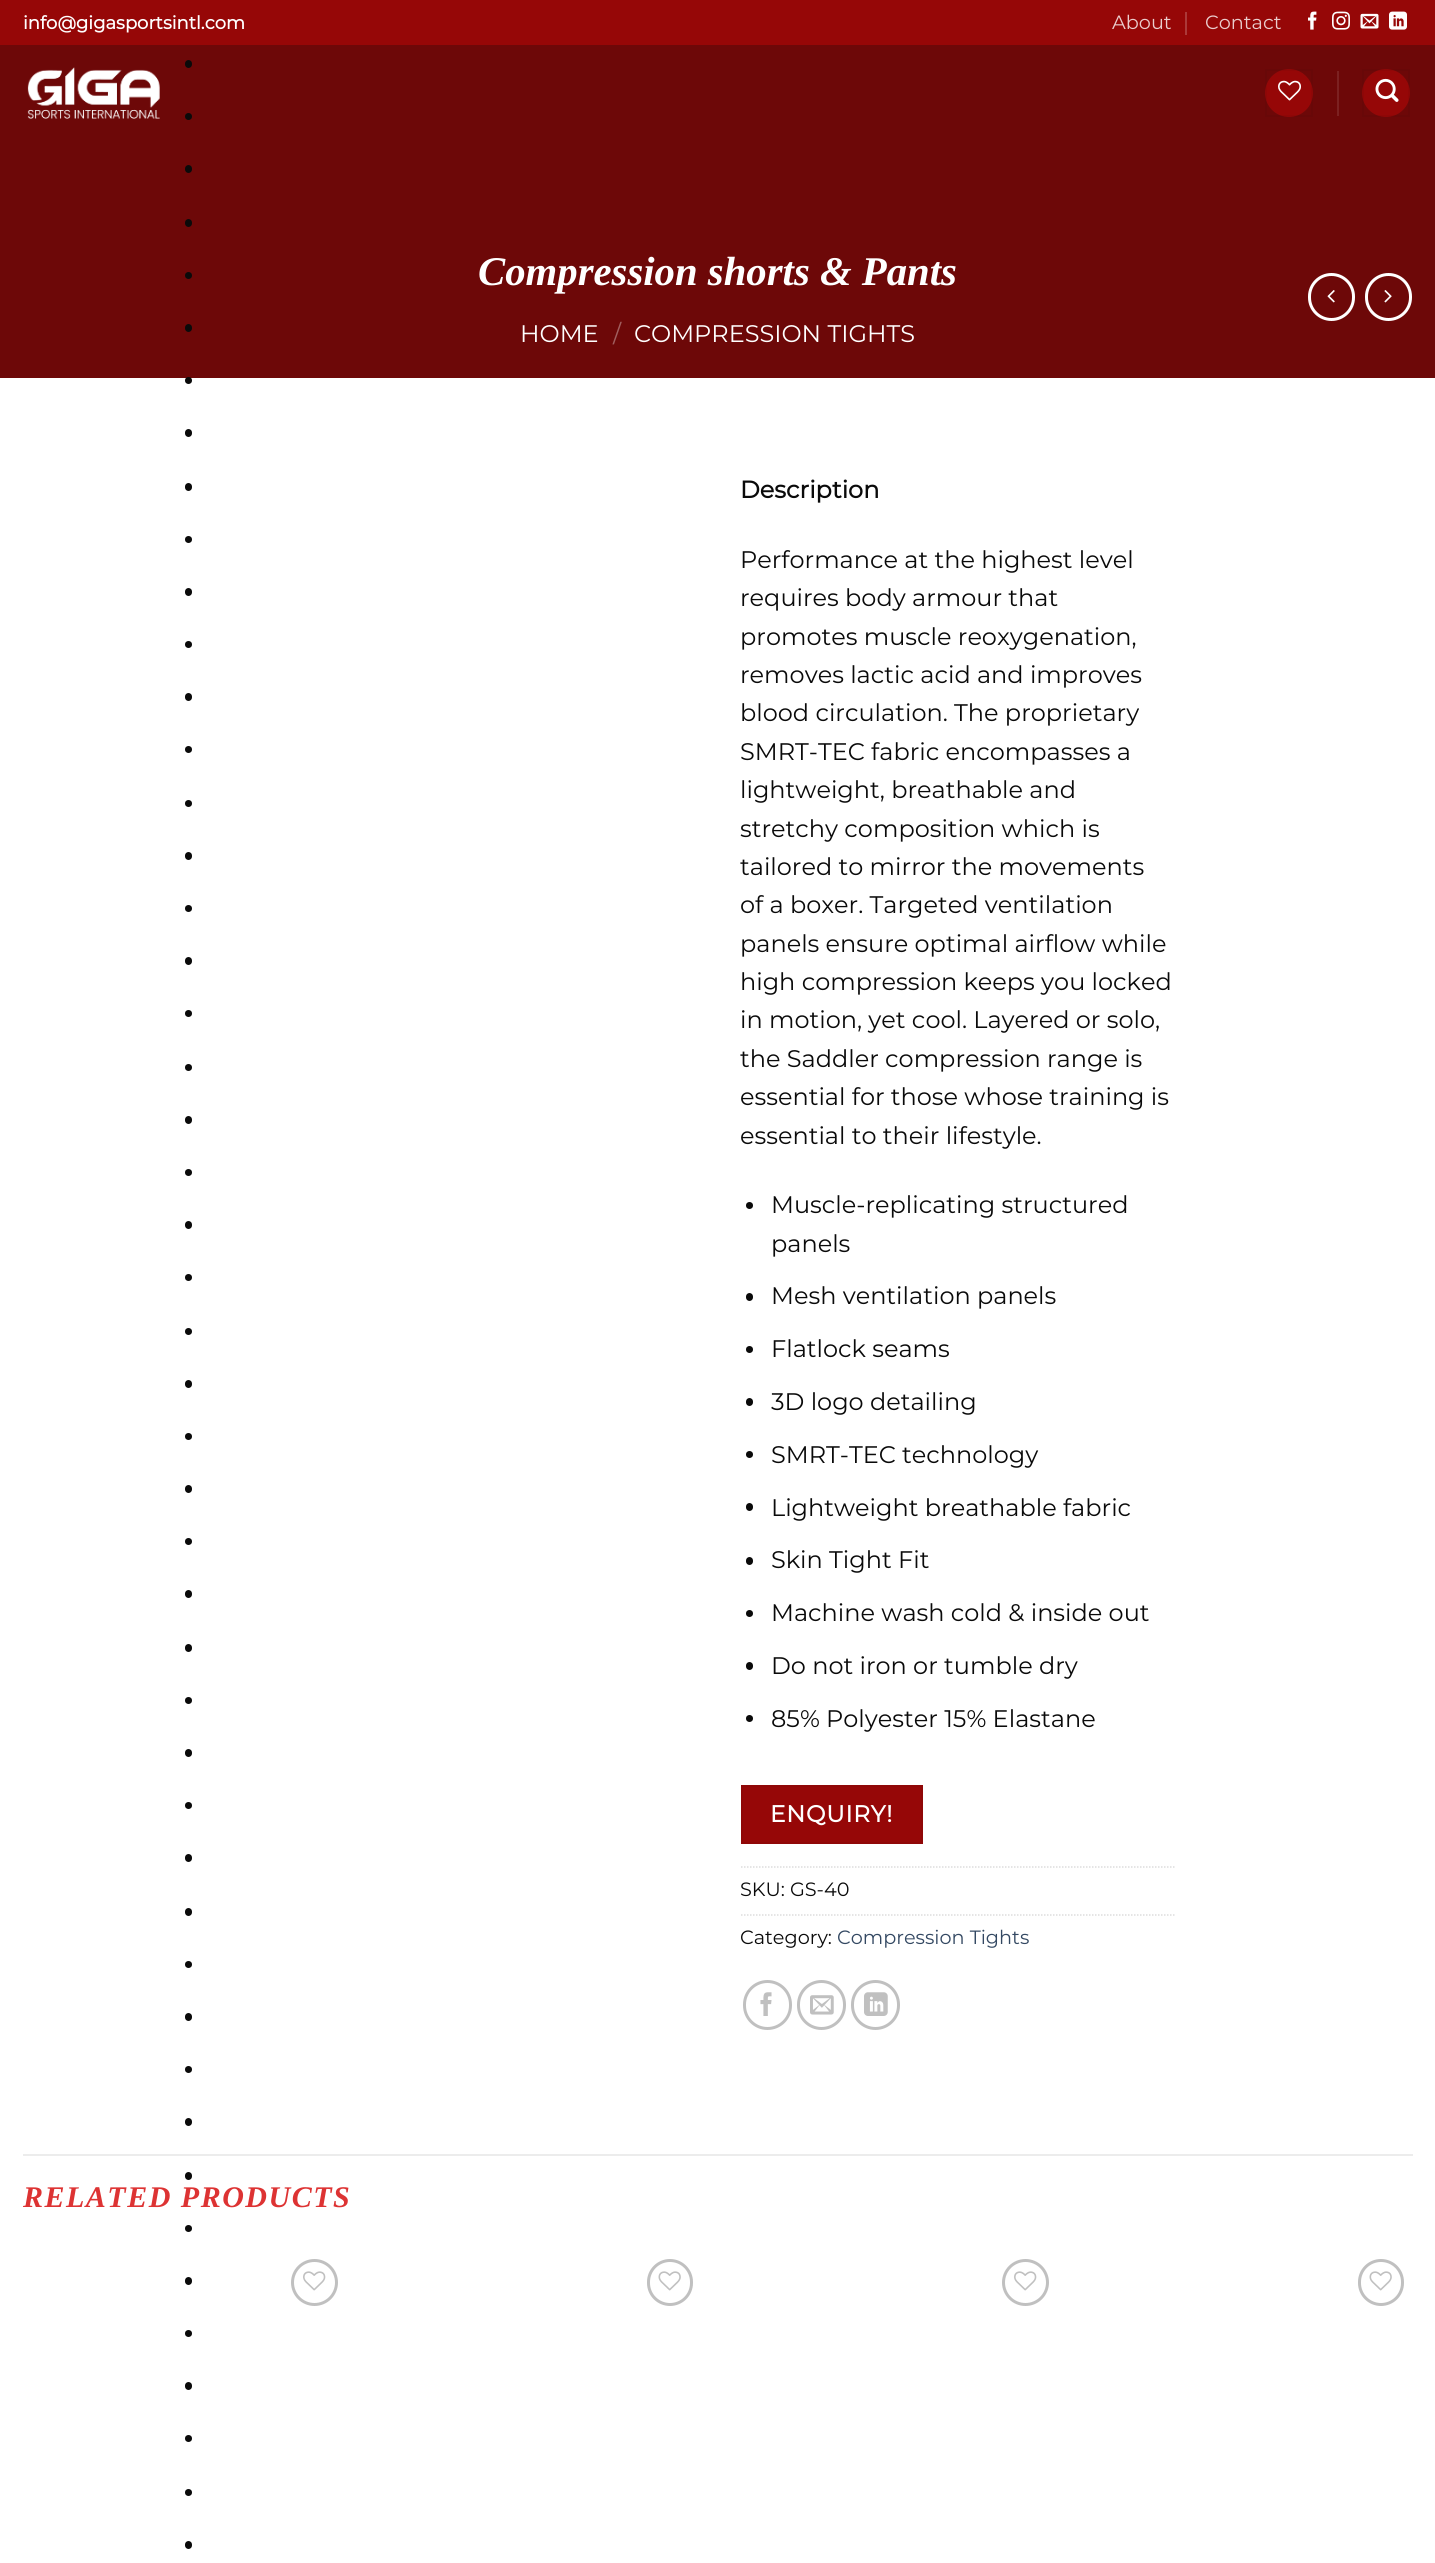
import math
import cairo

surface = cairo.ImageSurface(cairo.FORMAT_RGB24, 1435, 2563)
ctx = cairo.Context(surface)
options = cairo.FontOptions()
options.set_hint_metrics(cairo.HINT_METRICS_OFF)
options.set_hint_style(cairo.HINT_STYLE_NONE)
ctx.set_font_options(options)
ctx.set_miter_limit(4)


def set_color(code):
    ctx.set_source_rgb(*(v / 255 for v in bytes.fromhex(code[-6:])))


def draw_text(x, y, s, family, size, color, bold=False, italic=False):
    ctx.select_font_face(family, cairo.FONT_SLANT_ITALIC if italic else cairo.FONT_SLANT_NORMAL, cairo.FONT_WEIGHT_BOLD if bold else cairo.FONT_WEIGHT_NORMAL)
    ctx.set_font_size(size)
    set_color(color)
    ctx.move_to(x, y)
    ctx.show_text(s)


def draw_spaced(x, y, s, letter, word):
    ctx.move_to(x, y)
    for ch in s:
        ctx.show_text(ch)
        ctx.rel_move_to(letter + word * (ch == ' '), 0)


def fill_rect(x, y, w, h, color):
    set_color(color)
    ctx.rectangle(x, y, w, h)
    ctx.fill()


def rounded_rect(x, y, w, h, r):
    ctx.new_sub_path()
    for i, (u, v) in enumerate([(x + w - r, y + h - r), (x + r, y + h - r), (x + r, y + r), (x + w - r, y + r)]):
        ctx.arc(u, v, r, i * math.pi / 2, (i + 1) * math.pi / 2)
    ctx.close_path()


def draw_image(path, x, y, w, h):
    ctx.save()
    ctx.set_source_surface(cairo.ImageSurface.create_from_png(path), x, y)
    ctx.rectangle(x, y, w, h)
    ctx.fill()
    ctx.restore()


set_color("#ffffff")
ctx.paint()
fill_rect(0, 0, 1435, 45, "#960707")
draw_text(23, 29, "info@gigasportsintl.com", "Montserrat", 18, "#ffffff", bold=True)
draw_text(1112, 29, "About", "Montserrat", 19.25, "#eacdcd")
fill_rect(1185, 12, 2, 23, "#ab3939")
draw_text(1205, 29, "Contact", "Montserrat", 19.25, "#eacdcd")
draw_image("assets/img1.png", 1308, 11, 9, 19)
draw_image("assets/img2.png", 1332, 11, 18, 19)
draw_image("assets/img3.png", 1360, 13, 19, 16)
draw_image("assets/img4.png", 1389, 11, 18, 19)
fill_rect(0, 45, 1435, 333, "#6d0808")
draw_image("assets/img5.png", 27, 67, 133, 52)
set_color("#0a0a0a")
rounded_rect(185, 60, 7, 8, 3.5)
ctx.fill()
ctx.arc(188.5, 116.5, 3.5, 0, 2 * math.pi)
ctx.fill()
rounded_rect(185, 165, 7, 8, 3.5)
ctx.fill()
rounded_rect(185, 219, 7, 8, 3.5)
ctx.fill()
ctx.arc(188.5, 275.5, 3.5, 0, 2 * math.pi)
ctx.fill()
rounded_rect(185, 324, 7, 8, 3.5)
ctx.fill()
ctx.arc(188.5, 380.5, 3.5, 0, 2 * math.pi)
ctx.fill()
rounded_rect(185, 429, 7, 8, 3.5)
ctx.fill()
rounded_rect(185, 483, 7, 8, 3.5)
ctx.fill()
ctx.arc(188.5, 539.5, 3.5, 0, 2 * math.pi)
ctx.fill()
rounded_rect(185, 588, 7, 8, 3.5)
ctx.fill()
ctx.arc(188.5, 644.5, 3.5, 0, 2 * math.pi)
ctx.fill()
rounded_rect(185, 693, 7, 8, 3.5)
ctx.fill()
ctx.arc(188.5, 749.5, 3.5, 0, 2 * math.pi)
ctx.fill()
ctx.arc(188.5, 803.5, 3.5, 0, 2 * math.pi)
ctx.fill()
rounded_rect(185, 852, 7, 8, 3.5)
ctx.fill()
ctx.arc(188.5, 908.5, 3.5, 0, 2 * math.pi)
ctx.fill()
rounded_rect(185, 957, 7, 8, 3.5)
ctx.fill()
ctx.arc(188.5, 1013.5, 3.5, 0, 2 * math.pi)
ctx.fill()
ctx.arc(188.5, 1067.5, 3.5, 0, 2 * math.pi)
ctx.fill()
rounded_rect(185, 1116, 7, 8, 3.5)
ctx.fill()
ctx.arc(188.5, 1172.5, 3.5, 0, 2 * math.pi)
ctx.fill()
rounded_rect(185, 1221, 7, 8, 3.5)
ctx.fill()
ctx.arc(188.5, 1277.5, 3.5, 0, 2 * math.pi)
ctx.fill()
ctx.arc(188.5, 1331.5, 3.5, 0, 2 * math.pi)
ctx.fill()
rounded_rect(185, 1380, 7, 8, 3.5)
ctx.fill()
ctx.arc(188.5, 1436.5, 3.5, 0, 2 * math.pi)
ctx.fill()
rounded_rect(185, 1485, 7, 8, 3.5)
ctx.fill()
ctx.arc(188.5, 1541.5, 3.5, 0, 2 * math.pi)
ctx.fill()
rounded_rect(185, 1590, 7, 8, 3.5)
ctx.fill()
rounded_rect(185, 1644, 7, 8, 3.5)
ctx.fill()
ctx.arc(188.5, 1700.5, 3.5, 0, 2 * math.pi)
ctx.fill()
rounded_rect(185, 1749, 7, 8, 3.5)
ctx.fill()
ctx.arc(188.5, 1805.5, 3.5, 0, 2 * math.pi)
ctx.fill()
rounded_rect(185, 1854, 7, 8, 3.5)
ctx.fill()
rounded_rect(185, 1908, 7, 8, 3.5)
ctx.fill()
ctx.arc(188.5, 1964.5, 3.5, 0, 2 * math.pi)
ctx.fill()
rounded_rect(185, 2013, 7, 8, 3.5)
ctx.fill()
ctx.arc(188.5, 2069.5, 3.5, 0, 2 * math.pi)
ctx.fill()
rounded_rect(185, 2118, 7, 8, 3.5)
ctx.fill()
rounded_rect(185, 2172, 7, 8, 3.5)
ctx.fill()
ctx.arc(188.5, 2228.5, 3.5, 0, 2 * math.pi)
ctx.fill()
rounded_rect(185, 2277, 7, 8, 3.5)
ctx.fill()
ctx.arc(188.5, 2333.5, 3.5, 0, 2 * math.pi)
ctx.fill()
rounded_rect(185, 2382, 7, 8, 3.5)
ctx.fill()
ctx.arc(188.5, 2438.5, 3.5, 0, 2 * math.pi)
ctx.fill()
ctx.arc(188.5, 2492.5, 3.5, 0, 2 * math.pi)
ctx.fill()
rounded_rect(185, 2541, 7, 8, 3.5)
ctx.fill()
set_color("#960707")
ctx.arc(1289, 93, 24, 0, 2 * math.pi)
ctx.fill()
ctx.rectangle(1266, 70, 46, 46)
ctx.set_source_rgba(0, 0, 0, 0.05)
ctx.stroke()
draw_image("assets/img6.png", 1278, 80, 23, 21)
fill_rect(1337, 71, 2, 45, "#7c2121")
set_color("#960707")
ctx.arc(1386, 93, 24, 0, 2 * math.pi)
ctx.fill()
ctx.rectangle(1363, 70, 46, 46)
ctx.set_source_rgba(0, 0, 0, 0.05)
ctx.stroke()
draw_image("assets/img7.png", 1375, 78, 24, 24)
draw_text(478, 285, "Compression shorts & Pants", "Liberation Serif", 40.75, "#ffffff", bold=True, italic=True)
draw_text(520, 342, "HOME", "Montserrat", 24, "#ffffff")
draw_text(613, 342, "/", "Montserrat", 24, "#a05e5e")
draw_text(634, 342, "COMPRESSION TIGHTS", "Montserrat", 24, "#ffffff")
rounded_rect(1309.5, 274.5, 44, 45, 22)
ctx.set_line_width(3)
ctx.stroke()
draw_image("assets/img8.png", 1327, 290, 8, 13)
rounded_rect(1366.5, 274.5, 44, 45, 22)
ctx.stroke()
draw_image("assets/img9.png", 1384, 290, 8, 13)
draw_text(740, 498, "Description", "Montserrat", 24, "#0a0a0a", bold=True)
draw_text(740, 568, "Performance at the highest level", "Montserrat", 24, "#0a0a0a")
draw_text(740, 606, "requires body armour that", "Montserrat", 24, "#0a0a0a")
draw_text(740, 645, "promotes muscle reoxygenation,", "Montserrat", 24, "#0a0a0a")
draw_text(740, 683, "removes lactic acid and improves", "Montserrat", 24, "#0a0a0a")
draw_text(740, 721, "blood circulation. The proprietary", "Montserrat", 24, "#0a0a0a")
draw_text(740, 760, "SMRT-TEC fabric encompasses a", "Montserrat", 24, "#0a0a0a")
draw_text(740, 798, "lightweight, breathable and", "Montserrat", 24, "#0a0a0a")
draw_text(740, 837, "stretchy composition which is", "Montserrat", 24, "#0a0a0a")
draw_text(740, 875, "tailored to mirror the movements", "Montserrat", 24, "#0a0a0a")
draw_text(740, 913, "of a boxer. Targeted ventilation", "Montserrat", 24, "#0a0a0a")
draw_text(740, 952, "panels ensure optimal airflow while", "Montserrat", 24, "#0a0a0a")
draw_text(740, 990, "high compression keeps you locked", "Montserrat", 24, "#0a0a0a")
draw_text(740, 1028, "in motion, yet cool. Layered or solo,", "Montserrat", 24, "#0a0a0a")
draw_text(740, 1067, "the Saddler compression range is", "Montserrat", 24, "#0a0a0a")
draw_text(740, 1105, "essential for those whose training is", "Montserrat", 24, "#0a0a0a")
draw_text(740, 1144, "essential to their lifestyle.", "Montserrat", 24, "#0a0a0a")
ctx.new_path()
ctx.arc(749.5, 1205.5, 3.5, 0, 2 * math.pi)
ctx.fill()
draw_text(771, 1213, "Muscle-replicating structured", "Montserrat", 24, "#0a0a0a")
draw_text(771, 1252, "panels", "Montserrat", 24, "#0a0a0a")
rounded_rect(746, 1293, 7, 8, 3.5)
ctx.fill()
draw_text(771, 1304, "Mesh ventilation panels", "Montserrat", 24, "#0a0a0a")
ctx.new_path()
ctx.arc(749.5, 1349.5, 3.5, 0, 2 * math.pi)
ctx.fill()
draw_text(771, 1357, "Flatlock seams", "Montserrat", 24, "#0a0a0a")
rounded_rect(746, 1398, 7, 8, 3.5)
ctx.fill()
draw_text(771, 1410, "3D logo detailing", "Montserrat", 24, "#0a0a0a")
ctx.new_path()
ctx.arc(749.5, 1454.5, 3.5, 0, 2 * math.pi)
ctx.fill()
draw_text(771, 1463, "SMRT-TEC technology", "Montserrat", 24, "#0a0a0a")
rounded_rect(746, 1503, 7, 8, 3.5)
ctx.fill()
draw_text(771, 1516, "Lightweight breathable fabric", "Montserrat", 24, "#0a0a0a")
rounded_rect(746, 1557, 7, 8, 3.5)
ctx.fill()
draw_text(771, 1568, "Skin Tight Fit", "Montserrat", 24, "#0a0a0a")
ctx.new_path()
ctx.arc(749.5, 1613.5, 3.5, 0, 2 * math.pi)
ctx.fill()
draw_text(771, 1621, "Machine wash cold & inside out", "Montserrat", 24, "#0a0a0a")
rounded_rect(746, 1662, 7, 8, 3.5)
ctx.fill()
draw_text(771, 1674, "Do not iron or tumble dry", "Montserrat", 24, "#0a0a0a")
ctx.new_path()
ctx.arc(749.5, 1718.5, 3.5, 0, 2 * math.pi)
ctx.fill()
draw_text(771, 1727, "85% Polyester 15% Elastane", "Montserrat", 24, "#0a0a0a")
set_color("#960707")
ctx.rectangle(742, 1786, 180, 57)
ctx.fill_preserve()
set_color("#8f0707")
ctx.set_line_width(2)
ctx.stroke()
ctx.select_font_face("Montserrat", cairo.FONT_SLANT_NORMAL, cairo.FONT_WEIGHT_BOLD)
ctx.set_font_size(23.25)
set_color("#ffffff")
draw_spaced(770, 1822, "ENQUIRY!", 0.75, 0)
ctx.new_path()
ctx.move_to(741, 1867)
ctx.line_to(1174.5, 1867)
set_color("#dddddd")
ctx.set_line_width(1.5)
ctx.set_dash([1.5, 1.5])
ctx.stroke()
draw_text(740, 1896, "SKU: GS-40", "Montserrat", 19.25, "#0a0a0a")
ctx.new_path()
ctx.move_to(741, 1915)
ctx.line_to(1174.5, 1915)
set_color("#dddddd")
ctx.stroke()
draw_text(740, 1944, "Category:", "Montserrat", 19.25, "#0a0a0a")
draw_text(837, 1944, "Compression Tights", "Montserrat", 19.25, "#334862")
rounded_rect(744.5, 1981.5, 46, 47, 23)
set_color("#c0c0c0")
ctx.set_line_width(3)
ctx.set_dash([])
ctx.stroke()
draw_image("assets/img10.png", 760, 1992, 12, 24)
rounded_rect(798.5, 1981.5, 46, 47, 23)
ctx.stroke()
draw_image("assets/img11.png", 810, 1995, 24, 20)
rounded_rect(852.5, 1981.5, 46, 47, 23)
ctx.stroke()
draw_image("assets/img12.png", 864, 1992, 24, 24)
fill_rect(23, 2154, 1390, 2, "#ececec")
ctx.select_font_face("Liberation Serif", cairo.FONT_SLANT_ITALIC, cairo.FONT_WEIGHT_BOLD)
ctx.set_font_size(30)
set_color("#dd3333")
draw_spaced(23, 2207, "RELATED PRODUCTS", 1.5, 0)
ctx.new_path()
ctx.arc(314.5, 2282.5, 22, 0, 2 * math.pi)
set_color("#c0c0c0")
ctx.stroke()
draw_image("assets/img13.png", 303, 2271, 23, 20)
rounded_rect(648.5, 2260.5, 43, 44, 21.5)
ctx.stroke()
draw_image("assets/img14.png", 658, 2271, 23, 20)
ctx.arc(1025.5, 2282.5, 22, 0, 2 * math.pi)
ctx.stroke()
draw_image("assets/img13.png", 1014, 2271, 23, 20)
rounded_rect(1359.5, 2260.5, 43, 44, 21.5)
ctx.stroke()
draw_image("assets/img14.png", 1369, 2271, 23, 20)
surface.write_to_png("output.png")
